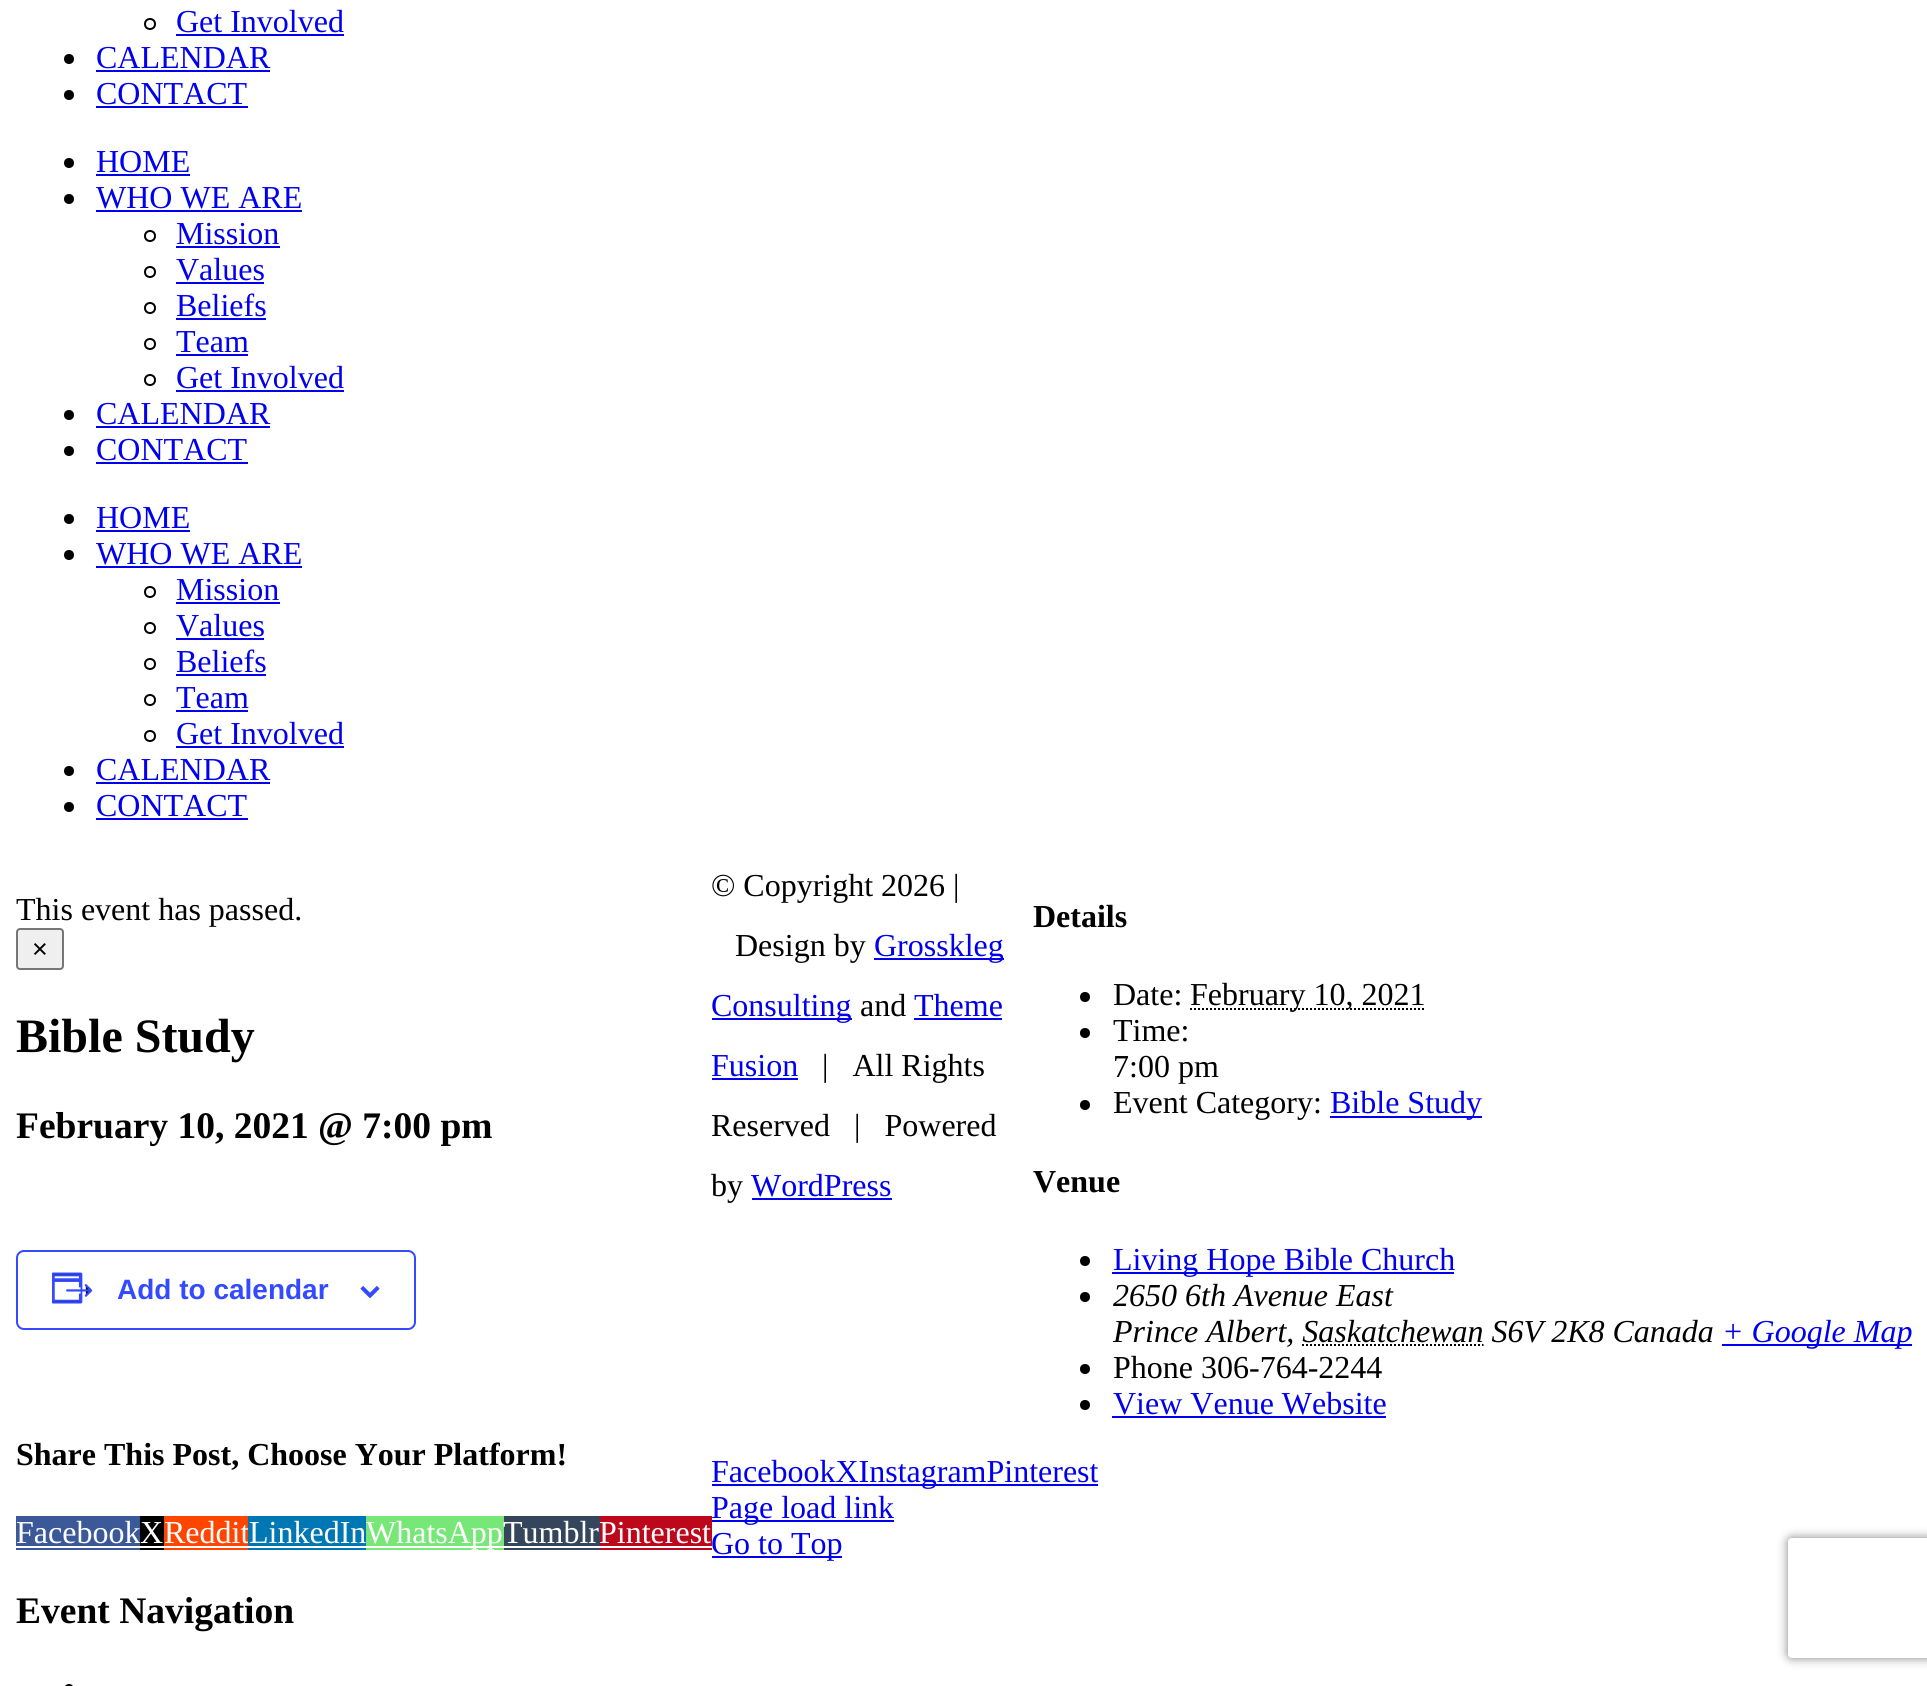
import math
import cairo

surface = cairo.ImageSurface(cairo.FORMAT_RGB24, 1927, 1686)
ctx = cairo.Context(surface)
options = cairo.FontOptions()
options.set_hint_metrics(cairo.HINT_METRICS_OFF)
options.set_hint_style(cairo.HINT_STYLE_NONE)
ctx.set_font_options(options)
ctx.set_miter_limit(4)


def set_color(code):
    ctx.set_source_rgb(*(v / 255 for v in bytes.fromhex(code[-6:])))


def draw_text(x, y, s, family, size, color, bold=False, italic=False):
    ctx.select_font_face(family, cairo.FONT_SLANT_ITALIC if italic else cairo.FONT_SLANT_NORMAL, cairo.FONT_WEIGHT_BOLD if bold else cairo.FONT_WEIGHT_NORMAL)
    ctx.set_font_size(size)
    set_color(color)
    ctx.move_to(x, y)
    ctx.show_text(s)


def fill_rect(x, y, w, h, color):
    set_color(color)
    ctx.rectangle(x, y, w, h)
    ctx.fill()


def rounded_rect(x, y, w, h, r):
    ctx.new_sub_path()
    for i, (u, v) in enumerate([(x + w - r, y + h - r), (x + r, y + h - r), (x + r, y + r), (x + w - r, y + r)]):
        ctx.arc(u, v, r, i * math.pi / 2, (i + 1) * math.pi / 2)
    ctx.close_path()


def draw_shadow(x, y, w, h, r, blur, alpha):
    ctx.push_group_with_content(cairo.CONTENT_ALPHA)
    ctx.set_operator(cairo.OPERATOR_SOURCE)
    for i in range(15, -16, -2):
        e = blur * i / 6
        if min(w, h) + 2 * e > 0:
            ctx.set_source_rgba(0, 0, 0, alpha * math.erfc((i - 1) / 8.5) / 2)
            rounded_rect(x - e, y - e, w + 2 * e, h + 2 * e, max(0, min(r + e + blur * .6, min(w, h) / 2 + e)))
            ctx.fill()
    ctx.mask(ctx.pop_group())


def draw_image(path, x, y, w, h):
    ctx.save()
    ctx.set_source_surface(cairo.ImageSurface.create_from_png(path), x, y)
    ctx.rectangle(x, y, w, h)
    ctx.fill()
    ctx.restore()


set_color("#ffffff")
ctx.paint()
ctx.arc(150, 24, 5, 0, 2 * math.pi)
set_color("#000000")
ctx.stroke()
draw_text(176, 32, "Get Involved", "Liberation Serif", 32, "#0000ee")
fill_rect(176, 34, 168, 2, "#0000ee")
set_color("#000000")
ctx.new_path()
ctx.arc(69, 59, 5, 0, 2 * math.pi)
ctx.fill()
draw_text(96, 68, "CALENDAR", "Liberation Serif", 32, "#0000ee")
fill_rect(96, 70, 174, 2, "#0000ee")
set_color("#000000")
ctx.new_path()
ctx.arc(69, 95, 5, 0, 2 * math.pi)
ctx.fill()
draw_text(96, 104, "CONTACT", "Liberation Serif", 32, "#0000ee")
fill_rect(96, 106, 152, 2, "#0000ee")
set_color("#000000")
ctx.new_path()
ctx.arc(69, 163, 5, 0, 2 * math.pi)
ctx.fill()
draw_text(96, 172, "HOME", "Liberation Serif", 32, "#0000ee")
fill_rect(96, 174, 94, 2, "#0000ee")
set_color("#000000")
ctx.new_path()
ctx.arc(69, 199, 5, 0, 2 * math.pi)
ctx.fill()
draw_text(96, 208, "WHO WE ARE", "Liberation Serif", 32, "#0000ee")
fill_rect(96, 210, 206, 2, "#0000ee")
ctx.new_path()
ctx.arc(150, 236, 5, 0, 2 * math.pi)
set_color("#000000")
ctx.stroke()
draw_text(176, 244, "Mission", "Liberation Serif", 32, "#0000ee")
fill_rect(176, 246, 104, 2, "#0000ee")
ctx.new_path()
ctx.arc(150, 272, 5, 0, 2 * math.pi)
set_color("#000000")
ctx.stroke()
draw_text(176, 280, "Values", "Liberation Serif", 32, "#0000ee")
fill_rect(176, 282, 88, 2, "#0000ee")
ctx.new_path()
ctx.arc(150, 308, 5, 0, 2 * math.pi)
set_color("#000000")
ctx.stroke()
draw_text(176, 316, "Beliefs", "Liberation Serif", 32, "#0000ee")
fill_rect(176, 318, 90, 2, "#0000ee")
ctx.new_path()
ctx.arc(150, 344, 5, 0, 2 * math.pi)
set_color("#000000")
ctx.stroke()
draw_text(176, 352, "Team", "Liberation Serif", 32, "#0000ee")
fill_rect(176, 354, 72, 2, "#0000ee")
ctx.new_path()
ctx.arc(150, 380, 5, 0, 2 * math.pi)
set_color("#000000")
ctx.stroke()
draw_text(176, 388, "Get Involved", "Liberation Serif", 32, "#0000ee")
fill_rect(176, 390, 168, 2, "#0000ee")
set_color("#000000")
ctx.new_path()
ctx.arc(69, 415, 5, 0, 2 * math.pi)
ctx.fill()
draw_text(96, 424, "CALENDAR", "Liberation Serif", 32, "#0000ee")
fill_rect(96, 426, 174, 2, "#0000ee")
set_color("#000000")
ctx.new_path()
ctx.arc(69, 451, 5, 0, 2 * math.pi)
ctx.fill()
draw_text(96, 460, "CONTACT", "Liberation Serif", 32, "#0000ee")
fill_rect(96, 462, 152, 2, "#0000ee")
set_color("#000000")
ctx.new_path()
ctx.arc(69, 519, 5, 0, 2 * math.pi)
ctx.fill()
draw_text(96, 528, "HOME", "Liberation Serif", 32, "#0000ee")
fill_rect(96, 530, 94, 2, "#0000ee")
set_color("#000000")
ctx.new_path()
ctx.arc(69, 555, 5, 0, 2 * math.pi)
ctx.fill()
draw_text(96, 564, "WHO WE ARE", "Liberation Serif", 32, "#0000ee")
fill_rect(96, 566, 206, 2, "#0000ee")
ctx.new_path()
ctx.arc(150, 592, 5, 0, 2 * math.pi)
set_color("#000000")
ctx.stroke()
draw_text(176, 600, "Mission", "Liberation Serif", 32, "#0000ee")
fill_rect(176, 602, 104, 2, "#0000ee")
ctx.new_path()
ctx.arc(150, 628, 5, 0, 2 * math.pi)
set_color("#000000")
ctx.stroke()
draw_text(176, 636, "Values", "Liberation Serif", 32, "#0000ee")
fill_rect(176, 638, 88, 2, "#0000ee")
ctx.new_path()
ctx.arc(150, 664, 5, 0, 2 * math.pi)
set_color("#000000")
ctx.stroke()
draw_text(176, 672, "Beliefs", "Liberation Serif", 32, "#0000ee")
fill_rect(176, 674, 90, 2, "#0000ee")
ctx.new_path()
ctx.arc(150, 700, 5, 0, 2 * math.pi)
set_color("#000000")
ctx.stroke()
draw_text(176, 708, "Team", "Liberation Serif", 32, "#0000ee")
fill_rect(176, 710, 72, 2, "#0000ee")
ctx.new_path()
ctx.arc(150, 736, 5, 0, 2 * math.pi)
set_color("#000000")
ctx.stroke()
draw_text(176, 744, "Get Involved", "Liberation Serif", 32, "#0000ee")
fill_rect(176, 746, 168, 2, "#0000ee")
set_color("#000000")
ctx.new_path()
ctx.arc(69, 771, 5, 0, 2 * math.pi)
ctx.fill()
draw_text(96, 780, "CALENDAR", "Liberation Serif", 32, "#0000ee")
fill_rect(96, 782, 174, 2, "#0000ee")
set_color("#000000")
ctx.new_path()
ctx.arc(69, 807, 5, 0, 2 * math.pi)
ctx.fill()
draw_text(96, 816, "CONTACT", "Liberation Serif", 32, "#0000ee")
fill_rect(96, 818, 152, 2, "#0000ee")
draw_text(711, 896, "© Copyright 2026 |", "Liberation Serif", 32, "#000000")
draw_text(735, 956, "Design by", "Liberation Serif", 32, "#000000")
fill_rect(874, 958, 130, 2, "#0000ee")
draw_text(874, 956, "Grosskleg", "Liberation Serif", 32, "#0000ee")
fill_rect(712, 1018, 140, 2, "#0000ee")
draw_text(711, 1016, "Consulting", "Liberation Serif", 32, "#0000ee")
draw_text(860, 1016, "and", "Liberation Serif", 32, "#000000")
draw_text(914, 1016, "Theme", "Liberation Serif", 32, "#0000ee")
fill_rect(914, 1018, 88, 2, "#0000ee")
draw_text(711, 1076, "Fusion", "Liberation Serif", 32, "#0000ee")
fill_rect(712, 1078, 86, 2, "#0000ee")
draw_text(822, 1076, "|   All Rights", "Liberation Serif", 32, "#000000")
draw_text(711, 1136, "Reserved   |   Powered", "Liberation Serif", 32, "#000000")
draw_text(711, 1196, "by", "Liberation Serif", 32, "#000000")
draw_text(751, 1196, "WordPress", "Liberation Serif", 32, "#0000ee")
fill_rect(752, 1198, 140, 2, "#0000ee")
fill_rect(712, 1484, 274, 2, "#0000ee")
draw_text(711, 1482, "FacebookXInstagramPinterest", "Liberation Serif", 32, "#0000ee")
fill_rect(986, 1484, 112, 2, "#0000ee")
draw_text(16, 920, "This event has passed.", "Liberation Serif", 32, "#000000")
set_color("#efefef")
rounded_rect(17, 929, 46, 40, 3)
ctx.fill_preserve()
set_color("#767676")
ctx.stroke()
draw_text(32, 958, "×", "Liberation Sans", 27, "#000000")
draw_text(16, 1052, "Bible Study", "Liberation Serif", 48, "#000000", bold=True)
draw_text(16, 1138, "February 10, 2021 @ 7:00 pm", "Liberation Serif", 37.5, "#000000", bold=True)
rounded_rect(17, 1251, 398, 78, 7)
set_color("#334aff")
ctx.stroke()
draw_image("assets/img1.png", 52, 1272, 41, 32)
draw_text(117, 1299, "Add to calendar", "Liberation Sans", 28, "#334aff", bold=True)
draw_image("assets/img2.png", 360, 1286, 20, 12)
draw_text(16, 1465, "Share This Post, Choose Your Platform!", "Liberation Serif", 32, "#000000", bold=True)
fill_rect(16, 1516, 124, 34, "#3b5998")
draw_text(16, 1543, "Facebook", "Liberation Serif", 32, "#ffffff")
fill_rect(16, 1546, 124, 2, "#ffffff")
fill_rect(140, 1516, 24, 34, "#000000")
draw_text(140, 1543, "X", "Liberation Serif", 32, "#ffffff")
fill_rect(140, 1546, 24, 2, "#ffffff")
fill_rect(164, 1516, 84, 34, "#ff4500")
draw_text(164, 1543, "Reddit", "Liberation Serif", 32, "#ffffff")
fill_rect(164, 1546, 84, 2, "#ffffff")
fill_rect(248, 1516, 118, 34, "#0077b5")
draw_text(249, 1543, "LinkedIn", "Liberation Serif", 32, "#ffffff")
fill_rect(248, 1546, 118, 2, "#ffffff")
fill_rect(366, 1516, 138, 34, "#77e878")
fill_rect(366, 1546, 138, 2, "#ffffff")
draw_text(366, 1543, "WhatsApp", "Liberation Serif", 32, "#ffffff")
fill_rect(504, 1516, 96, 34, "#35465c")
draw_text(503, 1543, "Tumblr", "Liberation Serif", 32, "#ffffff")
fill_rect(504, 1546, 96, 2, "#ffffff")
fill_rect(600, 1516, 112, 34, "#bd081c")
draw_text(599, 1543, "Pinterest", "Liberation Serif", 32, "#ffffff")
fill_rect(600, 1546, 112, 2, "#ffffff")
draw_text(16, 1623, "Event Navigation", "Liberation Serif", 37.5, "#000000", bold=True)
rounded_rect(64, 1684, 10, 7, 5)
ctx.fill()
draw_text(1033, 927, "Details", "Liberation Serif", 32, "#000000", bold=True)
ctx.new_path()
ctx.arc(1085, 997, 5, 0, 2 * math.pi)
ctx.fill()
draw_text(1113, 1005, "Date:", "Liberation Serif", 32, "#000000")
ctx.new_path()
ctx.move_to(1190, 1009)
ctx.line_to(1425.5, 1009)
ctx.set_dash([2, 2])
ctx.stroke()
draw_text(1190, 1005, "February 10, 2021", "Liberation Serif", 32, "#000000")
ctx.new_path()
ctx.arc(1085, 1033, 5, 0, 2 * math.pi)
ctx.fill()
draw_text(1113, 1041, "Time:", "Liberation Serif", 32, "#000000")
draw_text(1113, 1077, "7:00 pm", "Liberation Serif", 32, "#000000")
ctx.new_path()
ctx.arc(1085, 1105, 5, 0, 2 * math.pi)
ctx.fill()
draw_text(1113, 1113, "Event Category:", "Liberation Serif", 32, "#000000")
fill_rect(1330, 1116, 152, 2, "#0000ee")
draw_text(1330, 1113, "Bible Study", "Liberation Serif", 32, "#0000ee")
draw_text(1033, 1192, "Venue", "Liberation Serif", 32, "#000000", bold=True)
ctx.new_path()
ctx.arc(1085, 1261, 5, 0, 2 * math.pi)
ctx.fill()
fill_rect(1112, 1272, 342, 2, "#0000ee")
draw_text(1113, 1270, "Living Hope Bible Church", "Liberation Serif", 32, "#0000ee")
set_color("#000000")
ctx.new_path()
ctx.arc(1085, 1297, 5, 0, 2 * math.pi)
ctx.fill()
draw_text(1113, 1306, "2650 6th Avenue East", "Liberation Serif", 32, "#000000", italic=True)
draw_text(1113, 1342, "Prince Albert, Saskatchewan S6V 2K8 Canada", "Liberation Serif", 32, "#000000", italic=True)
ctx.new_path()
ctx.move_to(1302, 1345)
ctx.line_to(1483.5, 1345)
ctx.stroke()
fill_rect(1722, 1344, 190, 2, "#0000ee")
draw_text(1722, 1342, "+ Google Map", "Liberation Serif", 32, "#0000ee", italic=True)
set_color("#000000")
ctx.new_path()
ctx.arc(1085, 1369, 5, 0, 2 * math.pi)
ctx.fill()
draw_text(1113, 1378, "Phone 306-764-2244", "Liberation Serif", 32, "#000000")
ctx.new_path()
ctx.arc(1085, 1405, 5, 0, 2 * math.pi)
ctx.fill()
draw_text(1113, 1414, "View Venue Website", "Liberation Serif", 32, "#0000ee")
fill_rect(1112, 1416, 274, 2, "#0000ee")
fill_rect(712, 1520, 182, 2, "#0000ee")
draw_text(711, 1518, "Page load link", "Liberation Serif", 32, "#0000ee")
fill_rect(712, 1556, 130, 2, "#0000ee")
draw_text(711, 1554, "Go to Top", "Liberation Serif", 32, "#0000ee")
ctx.save()
ctx.set_fill_rule(cairo.FILL_RULE_EVEN_ODD)
ctx.new_path()
ctx.move_to(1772, 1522)
ctx.line_to(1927, 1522)
ctx.line_to(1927, 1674)
ctx.line_to(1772, 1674)
ctx.close_path()
ctx.move_to(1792, 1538)
ctx.line_to(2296, 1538)
ctx.curve_to(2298, 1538, 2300, 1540, 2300, 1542)
ctx.line_to(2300, 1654)
ctx.curve_to(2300, 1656, 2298, 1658, 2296, 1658)
ctx.line_to(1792, 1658)
ctx.curve_to(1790, 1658, 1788, 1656, 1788, 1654)
ctx.line_to(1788, 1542)
ctx.curve_to(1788, 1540, 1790, 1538, 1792, 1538)
ctx.close_path()
ctx.clip()
set_color("#808080")
draw_shadow(1788, 1538, 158, 120, 4, 5, 1)
ctx.restore()
surface.write_to_png("output.png")
